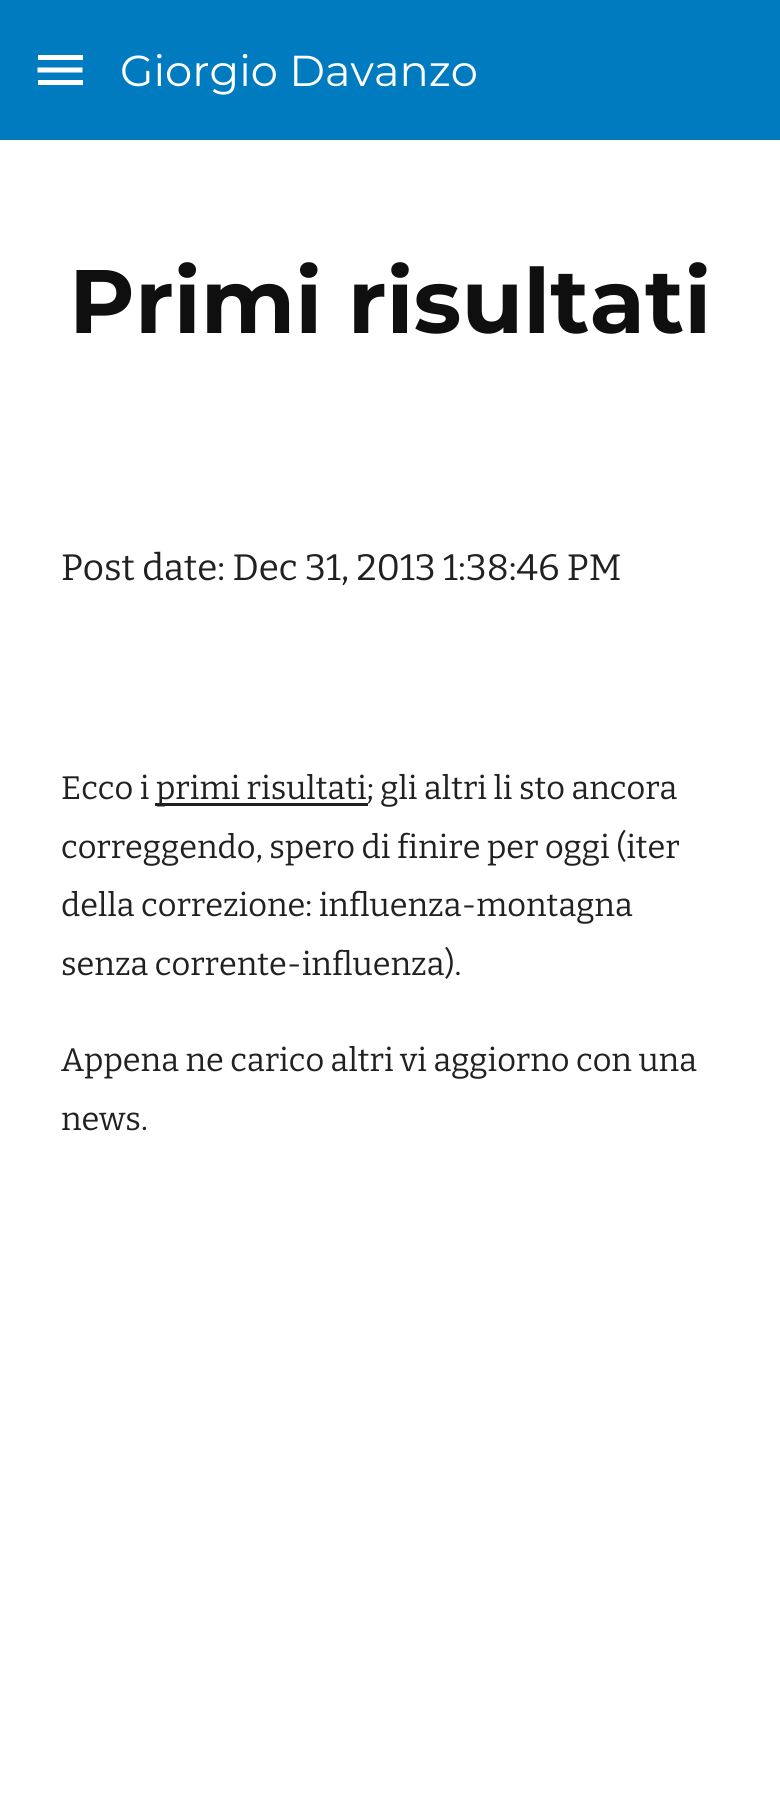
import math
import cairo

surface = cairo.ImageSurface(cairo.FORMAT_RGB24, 780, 1810)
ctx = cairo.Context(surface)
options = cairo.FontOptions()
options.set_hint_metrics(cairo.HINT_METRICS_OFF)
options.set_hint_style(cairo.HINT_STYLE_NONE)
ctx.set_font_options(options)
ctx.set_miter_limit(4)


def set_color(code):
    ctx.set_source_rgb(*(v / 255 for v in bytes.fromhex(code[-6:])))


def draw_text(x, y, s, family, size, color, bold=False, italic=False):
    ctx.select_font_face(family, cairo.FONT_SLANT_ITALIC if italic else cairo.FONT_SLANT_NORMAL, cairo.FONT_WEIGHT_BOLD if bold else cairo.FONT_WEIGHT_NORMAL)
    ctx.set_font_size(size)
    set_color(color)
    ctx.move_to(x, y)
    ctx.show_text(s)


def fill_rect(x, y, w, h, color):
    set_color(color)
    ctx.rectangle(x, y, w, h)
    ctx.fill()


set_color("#ffffff")
ctx.paint()
fill_rect(0, 0, 780, 140, "#007bbf")
fill_rect(38, 55, 45, 5, "#ffffff")
ctx.new_path()
ctx.move_to(37.5, 70)
ctx.line_to(82.5, 70)
ctx.set_line_width(5)
ctx.stroke()
fill_rect(38, 80, 45, 5, "#ffffff")
draw_text(120, 86, "Giorgio Davanzo", "Montserrat", 43.25, "#ffffff")
draw_text(69, 333, "Primi risultati", "Montserrat", 90, "#0f0f0f", bold=True)
draw_text(61, 580, "Post date: Dec 31, 2013 1:38:46 PM", "Bitter", 36.7, "#212121")
draw_text(61, 799, "Ecco i", "Bitter", 32.5, "#212121")
fill_rect(155, 803, 213, 3, "#212121")
draw_text(156, 799, "primi risultati; gli altri li sto ancora", "Bitter", 32.5, "#212121")
draw_text(61, 858, "correggendo, spero di finire per oggi (iter", "Bitter", 32.5, "#212121")
draw_text(61, 916, "della correzione: influenza-montagna", "Bitter", 32.5, "#212121")
draw_text(61, 975, "senza corrente-influenza).", "Bitter", 32.5, "#212121")
draw_text(61, 1071, "Appena ne carico altri vi aggiorno con una", "Bitter", 32.5, "#212121")
draw_text(61, 1130, "news.", "Bitter", 32.5, "#212121")
surface.write_to_png("output.png")
